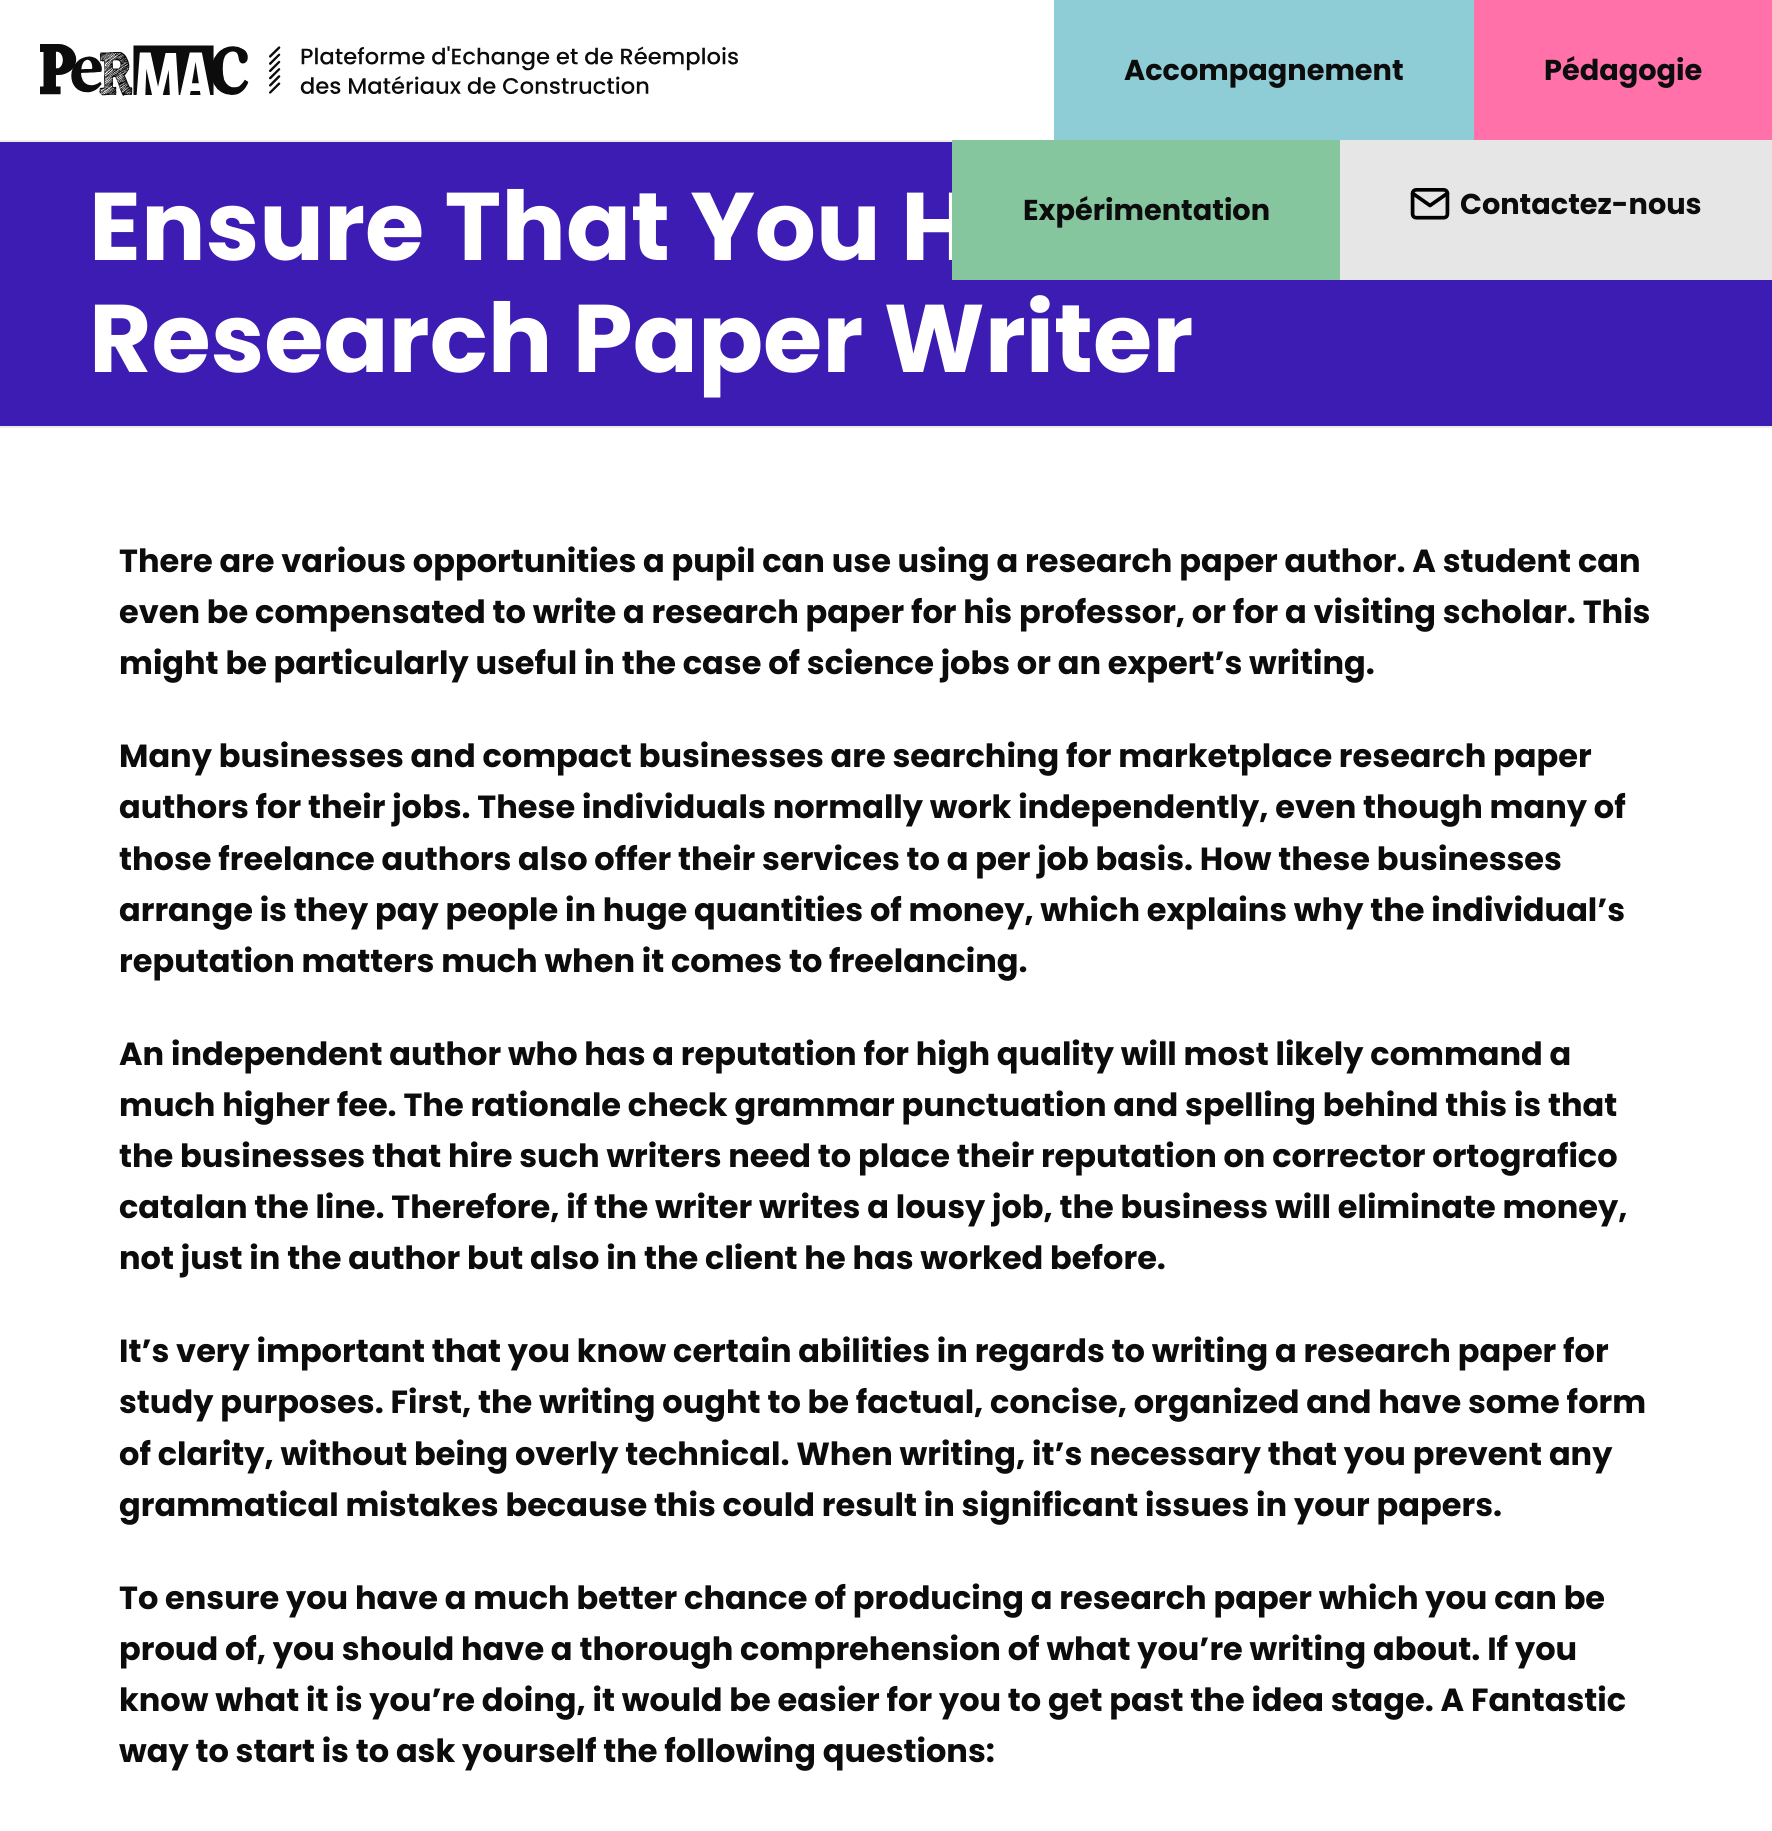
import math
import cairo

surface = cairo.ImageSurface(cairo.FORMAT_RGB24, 1772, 1831)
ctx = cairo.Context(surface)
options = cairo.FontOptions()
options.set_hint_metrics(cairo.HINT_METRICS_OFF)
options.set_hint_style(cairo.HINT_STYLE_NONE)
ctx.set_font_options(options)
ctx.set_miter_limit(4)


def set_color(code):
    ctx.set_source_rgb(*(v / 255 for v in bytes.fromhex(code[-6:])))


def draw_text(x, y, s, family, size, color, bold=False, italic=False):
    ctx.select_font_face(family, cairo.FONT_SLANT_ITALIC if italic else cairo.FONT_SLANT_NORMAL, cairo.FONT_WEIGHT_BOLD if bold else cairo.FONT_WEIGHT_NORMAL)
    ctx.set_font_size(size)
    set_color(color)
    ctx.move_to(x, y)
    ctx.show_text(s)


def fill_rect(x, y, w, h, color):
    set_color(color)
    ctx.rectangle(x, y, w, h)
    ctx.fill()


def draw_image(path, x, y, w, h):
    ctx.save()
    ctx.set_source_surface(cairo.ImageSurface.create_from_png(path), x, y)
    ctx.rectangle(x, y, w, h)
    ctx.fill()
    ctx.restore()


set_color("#ffffff")
ctx.paint()
draw_image("assets/img1.png", 40, 44, 698, 52)
fill_rect(1054, 0, 420, 140, "#8eccd6")
draw_text(1124, 80, "Accompagnement", "Poppins", 28.75, "#0c0c0c", bold=True)
fill_rect(1474, 0, 298, 140, "#ff71a8")
draw_text(1544, 80, "Pédagogie", "Poppins", 28.75, "#0c0c0c", bold=True)
fill_rect(0, 142, 1772, 284, "#3c1cb2")
draw_text(89, 260, "Ensure That You H", "Poppins", 96, "#ffffff", bold=True)
fill_rect(952, 140, 388, 140, "#85c69f")
draw_text(1023, 220, "Expérimentation", "Poppins", 28.75, "#0c0c0c", bold=True)
fill_rect(1340, 140, 432, 140, "#e6e6e6")
draw_image("assets/img2.png", 1410, 188, 40, 32)
draw_text(1460, 214, "Contactez-nous", "Poppins", 28.75, "#0c0c0c", bold=True)
fill_rect(0, 140, 952, 2, "#ececec")
fill_rect(0, 426, 1772, 2, "#ececec")
draw_text(89, 372, "Research Paper Writer", "Poppins", 96, "#ffffff", bold=True)
draw_text(119, 572, "There are various opportunities a pupil can use using a research paper author. A student can", "Poppins", 32, "#0c0c0c", bold=True)
draw_text(119, 623, "even be compensated to write a research paper for his professor, or for a visiting scholar. This", "Poppins", 32, "#0c0c0c", bold=True)
draw_text(119, 674, "might be particularly useful in the case of science jobs or an expert’s writing.", "Poppins", 32, "#0c0c0c", bold=True)
draw_text(119, 767, "Many businesses and compact businesses are searching for marketplace research paper", "Poppins", 32, "#0c0c0c", bold=True)
draw_text(119, 818, "authors for their jobs. These individuals normally work independently, even though many of", "Poppins", 32, "#0c0c0c", bold=True)
draw_text(119, 870, "those freelance authors also offer their services to a per job basis. How these businesses", "Poppins", 32, "#0c0c0c", bold=True)
draw_text(119, 921, "arrange is they pay people in huge quantities of money, which explains why the individual’s", "Poppins", 32, "#0c0c0c", bold=True)
draw_text(119, 972, "reputation matters much when it comes to freelancing.", "Poppins", 32, "#0c0c0c", bold=True)
draw_text(119, 1065, "An independent author who has a reputation for high quality will most likely command a", "Poppins", 32, "#0c0c0c", bold=True)
draw_text(119, 1116, "much higher fee. The rationale check grammar punctuation and spelling behind this is that", "Poppins", 32, "#0c0c0c", bold=True)
draw_text(119, 1167, "the businesses that hire such writers need to place their reputation on corrector ortografico", "Poppins", 32, "#0c0c0c", bold=True)
draw_text(119, 1218, "catalan the line. Therefore, if the writer writes a lousy job, the business will eliminate money,", "Poppins", 32, "#0c0c0c", bold=True)
draw_text(119, 1269, "not just in the author but also in the client he has worked before.", "Poppins", 32, "#0c0c0c", bold=True)
draw_text(119, 1362, "It’s very important that you know certain abilities in regards to writing a research paper for", "Poppins", 32, "#0c0c0c", bold=True)
draw_text(119, 1413, "study purposes. First, the writing ought to be factual, concise, organized and have some form", "Poppins", 32, "#0c0c0c", bold=True)
draw_text(119, 1465, "of clarity, without being overly technical. When writing, it’s necessary that you prevent any", "Poppins", 32, "#0c0c0c", bold=True)
draw_text(119, 1516, "grammatical mistakes because this could result in significant issues in your papers.", "Poppins", 32, "#0c0c0c", bold=True)
draw_text(119, 1609, "To ensure you have a much better chance of producing a research paper which you can be", "Poppins", 32, "#0c0c0c", bold=True)
draw_text(119, 1660, "proud of, you should have a thorough comprehension of what you’re writing about. If you", "Poppins", 32, "#0c0c0c", bold=True)
draw_text(119, 1711, "know what it is you’re doing, it would be easier for you to get past the idea stage. A Fantastic", "Poppins", 32, "#0c0c0c", bold=True)
draw_text(119, 1762, "way to start is to ask yourself the following questions:", "Poppins", 32, "#0c0c0c", bold=True)
surface.write_to_png("output.png")
